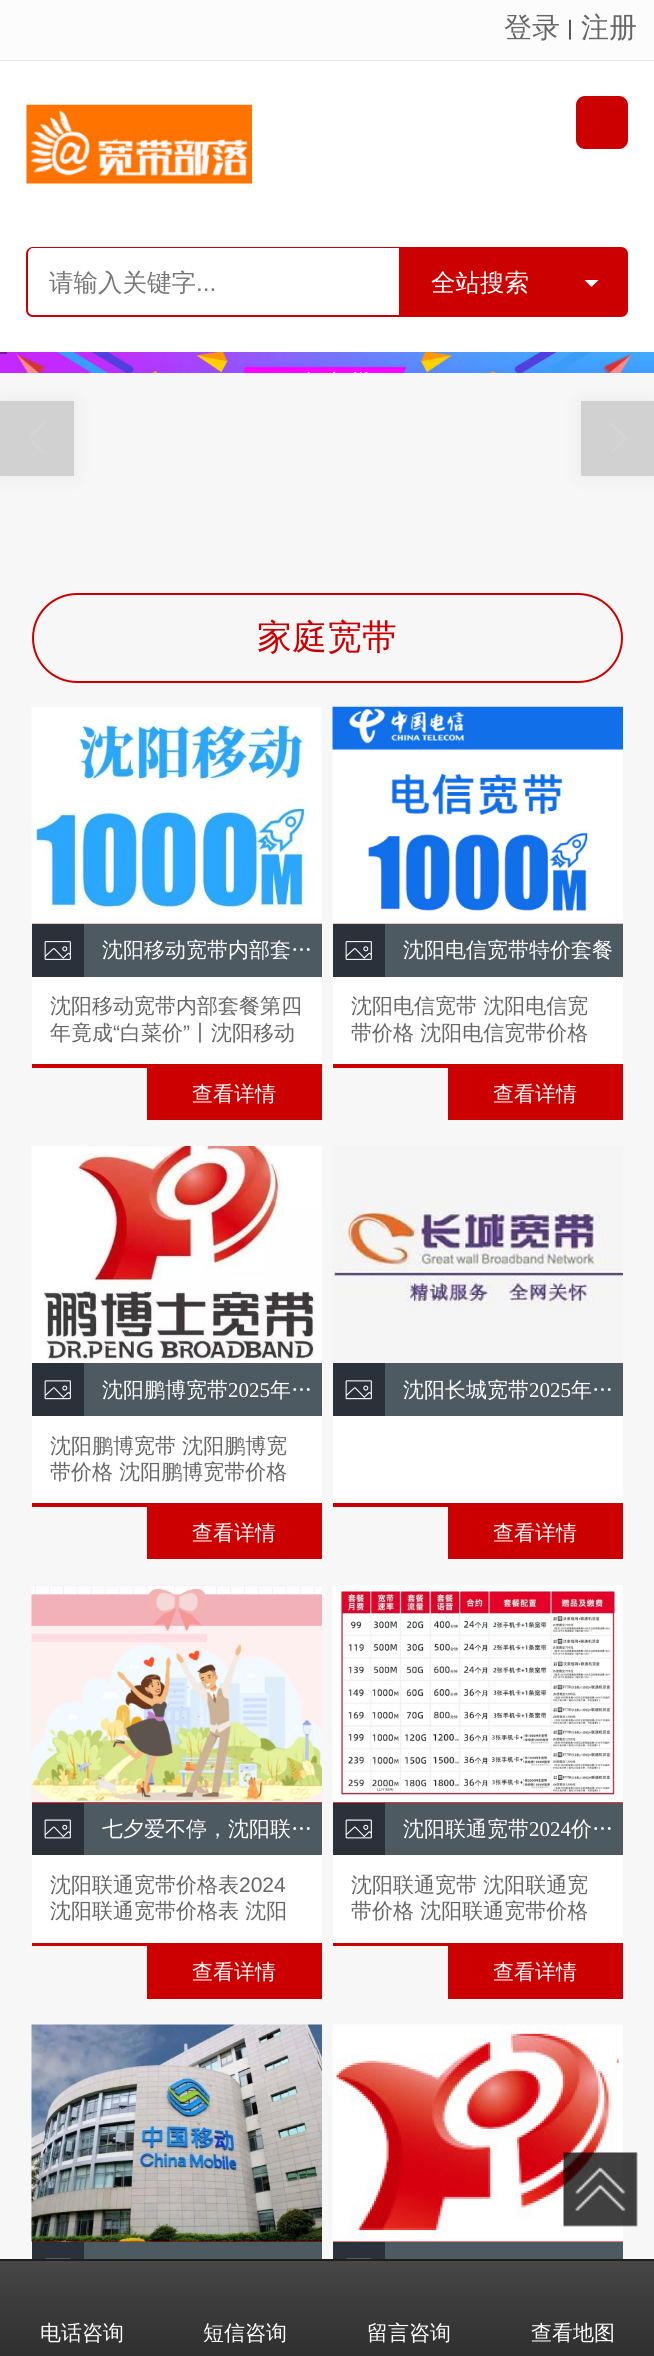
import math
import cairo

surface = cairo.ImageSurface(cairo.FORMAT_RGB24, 654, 2356)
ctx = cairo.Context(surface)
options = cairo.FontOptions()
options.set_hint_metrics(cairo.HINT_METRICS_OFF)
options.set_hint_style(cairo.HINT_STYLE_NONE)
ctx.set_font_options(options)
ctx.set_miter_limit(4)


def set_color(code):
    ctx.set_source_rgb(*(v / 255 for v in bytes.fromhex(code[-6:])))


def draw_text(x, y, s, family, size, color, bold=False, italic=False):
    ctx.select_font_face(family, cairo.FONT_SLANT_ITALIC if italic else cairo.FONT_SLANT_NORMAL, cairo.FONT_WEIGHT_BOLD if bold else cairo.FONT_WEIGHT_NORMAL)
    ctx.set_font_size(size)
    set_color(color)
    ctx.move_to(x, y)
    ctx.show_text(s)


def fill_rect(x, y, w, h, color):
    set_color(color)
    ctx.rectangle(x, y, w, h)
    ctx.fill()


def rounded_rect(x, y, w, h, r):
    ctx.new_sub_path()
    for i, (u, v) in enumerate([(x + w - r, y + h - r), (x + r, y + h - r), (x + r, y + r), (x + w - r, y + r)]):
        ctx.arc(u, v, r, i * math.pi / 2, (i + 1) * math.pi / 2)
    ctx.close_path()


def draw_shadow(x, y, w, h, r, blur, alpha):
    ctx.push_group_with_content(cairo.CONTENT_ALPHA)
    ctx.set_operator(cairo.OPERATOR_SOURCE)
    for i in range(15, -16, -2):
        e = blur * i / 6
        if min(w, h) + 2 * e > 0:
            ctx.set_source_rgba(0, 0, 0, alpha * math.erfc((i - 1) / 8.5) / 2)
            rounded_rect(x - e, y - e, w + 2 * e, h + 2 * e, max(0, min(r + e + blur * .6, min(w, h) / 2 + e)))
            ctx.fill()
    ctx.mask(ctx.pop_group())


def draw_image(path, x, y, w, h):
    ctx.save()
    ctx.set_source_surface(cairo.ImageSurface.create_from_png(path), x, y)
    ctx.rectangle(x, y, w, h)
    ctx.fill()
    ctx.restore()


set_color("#fcfcfc")
ctx.paint()
fill_rect(0, 60, 654, 1, "#e6e6e6")
draw_text(504, 37, "登录", "WenQuanYi Zen Hei Medium", 28, "#666666")
draw_text(560, 37, "丨", "WenQuanYi Zen Hei Medium", 21, "#333333")
draw_text(581, 37, "注册", "WenQuanYi Zen Hei Medium", 28, "#666666")
fill_rect(0, 373, 654, 1886, "#f7f7f7")
fill_rect(0, 61, 654, 291, "#ffffff")
set_color("#cc0000")
rounded_rect(576, 96, 52, 53, 9)
ctx.fill()
draw_image("assets/img1.png", 26, 104, 226, 80)
ctx.set_fill_rule(cairo.FILL_RULE_EVEN_ODD)
ctx.new_path()
ctx.move_to(33, 247)
ctx.line_to(399, 247)
ctx.line_to(399, 317)
ctx.line_to(33, 317)
ctx.curve_to(29, 317, 26, 314, 26, 310)
ctx.line_to(26, 254)
ctx.curve_to(26, 250, 29, 247, 33, 247)
ctx.close_path()
ctx.move_to(33, 248)
ctx.line_to(399, 248)
ctx.line_to(399, 315)
ctx.line_to(33, 315)
ctx.curve_to(30, 315, 28, 313, 28, 310)
ctx.line_to(28, 254)
ctx.curve_to(28, 251, 30, 248, 33, 248)
ctx.close_path()
ctx.fill()
draw_text(49, 291, "请输入关键字", "WenQuanYi Zen Hei Medium", 24.5, "#777777")
draw_text(196, 291, "...", "Liberation Sans", 24.5, "#777777")
set_color("#cc0000")
ctx.new_path()
ctx.move_to(399, 247)
ctx.line_to(621, 247)
ctx.curve_to(625, 247, 628, 250, 628, 254)
ctx.line_to(628, 310)
ctx.curve_to(628, 314, 625, 317, 621, 317)
ctx.line_to(399, 317)
ctx.close_path()
ctx.fill()
draw_text(431, 291, "全站搜索", "WenQuanYi Zen Hei Medium", 24.5, "#ffffff")
ctx.set_fill_rule(cairo.FILL_RULE_WINDING)
ctx.new_path()
ctx.move_to(584.5, 280)
ctx.line_to(598.5, 280)
ctx.line_to(591.5, 287)
ctx.close_path()
ctx.fill()
draw_image("assets/img2.png", 0, 352, 654, 21)
fill_rect(0, 352, 7, 2, "#781798")
set_color("#c6c6c6")
draw_shadow(0, 401, 74, 75, 0, 9, 0.3)
fill_rect(0, 401, 74, 75, "#d1d1d1")
draw_image("assets/img3.png", 30, 422, 15, 32)
set_color("#c6c6c6")
draw_shadow(581, 401, 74, 75, 0, 9, 0.3)
fill_rect(581, 401, 73, 75, "#d1d1d1")
draw_image("assets/img4.png", 609, 422, 17, 31)
rounded_rect(33, 594, 589, 88, 44)
set_color("#cc0000")
ctx.stroke()
draw_text(257, 649, "家庭宽带", "WenQuanYi Zen Hei Medium", 35, "#cc0000")
fill_rect(32, 923, 290, 197, "#cc0000")
draw_image("assets/img5.png", 31, 707, 291, 217)
fill_rect(84, 924, 238, 53, "#4d5a62")
fill_rect(32, 924, 52, 53, "#2a313b")
draw_image("assets/img6.png", 44, 941, 27, 19)
draw_text(102, 957, "沈阳移动宽带内部套…", "WenQuanYi Zen Hei Medium", 21, "#ffffff")
fill_rect(32, 977, 290, 87, "#ffffff")
draw_text(50, 1013, "沈阳移动宽带内部套餐第四", "WenQuanYi Zen Hei Medium", 21, "#666666")
draw_text(50, 1040, "年竟成", "WenQuanYi Zen Hei Medium", 21, "#666666")
draw_text(113, 1040, "“", "Liberation Sans", 21, "#666666")
draw_text(120, 1040, "白菜价", "WenQuanYi Zen Hei Medium", 21, "#666666")
draw_text(183, 1040, "”", "Liberation Sans", 21, "#666666")
draw_text(190, 1040, "丨沈阳移动", "WenQuanYi Zen Hei Medium", 21, "#666666")
fill_rect(32, 1068, 115, 52, "#f7f7f7")
draw_text(192, 1101, "查看详情", "WenQuanYi Zen Hei Medium", 21, "#ffffff")
fill_rect(333, 923, 290, 197, "#cc0000")
draw_image("assets/img7.png", 332, 706, 291, 218)
fill_rect(385, 924, 238, 53, "#4d5a62")
fill_rect(333, 924, 52, 53, "#2a313b")
draw_image("assets/img6.png", 345, 941, 27, 19)
draw_text(403, 957, "沈阳电信宽带特价套餐", "WenQuanYi Zen Hei Medium", 21, "#ffffff")
fill_rect(333, 977, 290, 87, "#ffffff")
draw_text(351, 1013, "沈阳电信宽带 沈阳电信宽", "WenQuanYi Zen Hei Medium", 21, "#666666")
draw_text(351, 1040, "带价格 沈阳电信宽带价格", "WenQuanYi Zen Hei Medium", 21, "#666666")
fill_rect(333, 1068, 115, 52, "#f7f7f7")
draw_text(493, 1101, "查看详情", "WenQuanYi Zen Hei Medium", 21, "#ffffff")
fill_rect(32, 1503, 290, 56, "#cc0000")
draw_image("assets/img8.png", 31, 1146, 291, 217)
fill_rect(84, 1363, 238, 53, "#4d5a62")
fill_rect(32, 1363, 52, 53, "#2a313b")
draw_image("assets/img9.png", 44, 1380, 27, 20)
draw_text(102, 1397, "沈阳鹏博宽带", "WenQuanYi Zen Hei Medium", 21, "#ffffff")
draw_text(228, 1397, "2025", "Liberation Serif", 21, "#ffffff")
draw_text(270, 1397, "年…", "WenQuanYi Zen Hei Medium", 21, "#ffffff")
fill_rect(32, 1416, 290, 87, "#ffffff")
draw_text(50, 1453, "沈阳鹏博宽带 沈阳鹏博宽", "WenQuanYi Zen Hei Medium", 21, "#666666")
draw_text(50, 1479, "带价格 沈阳鹏博宽带价格", "WenQuanYi Zen Hei Medium", 21, "#666666")
fill_rect(32, 1507, 115, 52, "#f7f7f7")
draw_text(192, 1540, "查看详情", "WenQuanYi Zen Hei Medium", 21, "#ffffff")
fill_rect(333, 1503, 290, 56, "#cc0000")
draw_image("assets/img10.png", 332, 1146, 291, 217)
fill_rect(385, 1363, 238, 53, "#4d5a62")
fill_rect(333, 1363, 52, 53, "#2a313b")
draw_image("assets/img9.png", 345, 1380, 27, 20)
draw_text(403, 1397, "沈阳长城宽带", "WenQuanYi Zen Hei Medium", 21, "#ffffff")
draw_text(529, 1397, "2025", "Liberation Serif", 21, "#ffffff")
draw_text(571, 1397, "年…", "WenQuanYi Zen Hei Medium", 21, "#ffffff")
fill_rect(333, 1416, 290, 87, "#ffffff")
fill_rect(333, 1507, 115, 52, "#f7f7f7")
draw_text(493, 1540, "查看详情", "WenQuanYi Zen Hei Medium", 21, "#ffffff")
fill_rect(32, 1802, 290, 197, "#cc0000")
draw_image("assets/img11.png", 31, 1585, 291, 218)
fill_rect(84, 1803, 238, 52, "#4d5a62")
fill_rect(32, 1803, 52, 52, "#2a313b")
draw_image("assets/img12.png", 44, 1819, 27, 20)
draw_text(102, 1836, "七夕爱不停，沈阳联…", "WenQuanYi Zen Hei Medium", 21, "#ffffff")
fill_rect(32, 1855, 290, 88, "#ffffff")
draw_text(50, 1892, "沈阳联通宽带价格表", "WenQuanYi Zen Hei Medium", 21, "#666666")
draw_text(239, 1892, "2024", "Liberation Sans", 21, "#666666")
draw_text(50, 1918, "沈阳联通宽带价格表 沈阳", "WenQuanYi Zen Hei Medium", 21, "#666666")
fill_rect(32, 1946, 115, 53, "#f7f7f7")
draw_text(192, 1979, "查看详情", "WenQuanYi Zen Hei Medium", 21, "#ffffff")
fill_rect(333, 1802, 290, 197, "#cc0000")
draw_image("assets/img13.png", 332, 1585, 291, 218)
fill_rect(385, 1803, 238, 52, "#4d5a62")
fill_rect(333, 1803, 52, 52, "#2a313b")
draw_image("assets/img12.png", 345, 1819, 27, 20)
draw_text(403, 1836, "沈阳联通宽带", "WenQuanYi Zen Hei Medium", 21, "#ffffff")
draw_text(529, 1836, "2024", "Liberation Serif", 21, "#ffffff")
draw_text(571, 1836, "价…", "WenQuanYi Zen Hei Medium", 21, "#ffffff")
fill_rect(333, 1855, 290, 88, "#ffffff")
draw_text(351, 1892, "沈阳联通宽带 沈阳联通宽", "WenQuanYi Zen Hei Medium", 21, "#666666")
draw_text(351, 1918, "带价格 沈阳联通宽带价格", "WenQuanYi Zen Hei Medium", 21, "#666666")
fill_rect(333, 1946, 115, 53, "#f7f7f7")
draw_text(493, 1979, "查看详情", "WenQuanYi Zen Hei Medium", 21, "#ffffff")
fill_rect(32, 2241, 290, 1, "#cc0000")
draw_image("assets/img14.png", 31, 2024, 291, 218)
fill_rect(84, 2242, 238, 17, "#4d5a62")
fill_rect(32, 2242, 52, 17, "#2a313b")
draw_image("assets/img15.png", 45, 2258, 26, 1)
fill_rect(333, 2241, 290, 1, "#cc0000")
draw_image("assets/img16.png", 332, 2024, 291, 218)
fill_rect(385, 2242, 238, 17, "#4d5a62")
fill_rect(333, 2242, 52, 17, "#2a313b")
draw_image("assets/img15.png", 346, 2258, 26, 1)
gradient = cairo.LinearGradient(327, 2261, 327, 2356)
gradient.add_color_stop_rgba(0, 0.278, 0.278, 0.278, 1)
gradient.add_color_stop_rgba(1, 0.184, 0.184, 0.184, 1)
ctx.set_source(gradient)
ctx.rectangle(0, 2261, 654, 95)
ctx.fill()
fill_rect(0, 2259, 654, 2, "#1d1d1d")
draw_text(40, 2340, "电话咨询", "WenQuanYi Zen Hei Medium", 21, "#ffffff")
draw_text(203, 2340, "短信咨询", "WenQuanYi Zen Hei Medium", 21, "#ffffff")
draw_text(367, 2340, "留言咨询", "WenQuanYi Zen Hei Medium", 21, "#ffffff")
draw_text(531, 2340, "查看地图", "WenQuanYi Zen Hei Medium", 21, "#ffffff")
draw_image("assets/img17.png", 563, 2152, 75, 75)
draw_image("assets/img18.png", 575, 2166, 51, 46)
surface.write_to_png("output.png")
